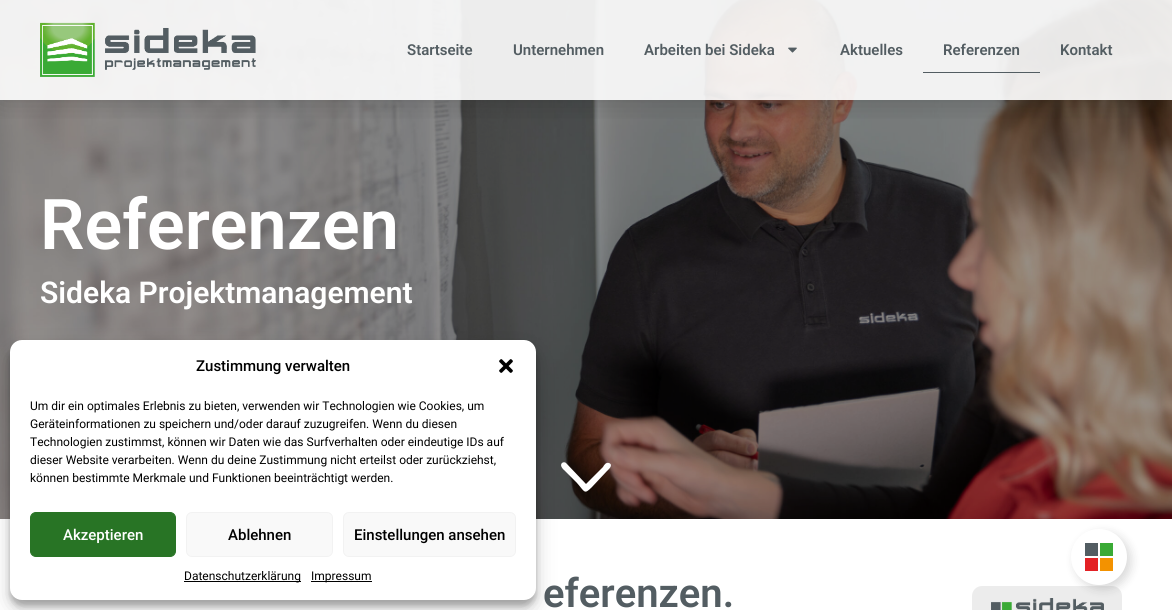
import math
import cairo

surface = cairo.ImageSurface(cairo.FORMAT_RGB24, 1172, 610)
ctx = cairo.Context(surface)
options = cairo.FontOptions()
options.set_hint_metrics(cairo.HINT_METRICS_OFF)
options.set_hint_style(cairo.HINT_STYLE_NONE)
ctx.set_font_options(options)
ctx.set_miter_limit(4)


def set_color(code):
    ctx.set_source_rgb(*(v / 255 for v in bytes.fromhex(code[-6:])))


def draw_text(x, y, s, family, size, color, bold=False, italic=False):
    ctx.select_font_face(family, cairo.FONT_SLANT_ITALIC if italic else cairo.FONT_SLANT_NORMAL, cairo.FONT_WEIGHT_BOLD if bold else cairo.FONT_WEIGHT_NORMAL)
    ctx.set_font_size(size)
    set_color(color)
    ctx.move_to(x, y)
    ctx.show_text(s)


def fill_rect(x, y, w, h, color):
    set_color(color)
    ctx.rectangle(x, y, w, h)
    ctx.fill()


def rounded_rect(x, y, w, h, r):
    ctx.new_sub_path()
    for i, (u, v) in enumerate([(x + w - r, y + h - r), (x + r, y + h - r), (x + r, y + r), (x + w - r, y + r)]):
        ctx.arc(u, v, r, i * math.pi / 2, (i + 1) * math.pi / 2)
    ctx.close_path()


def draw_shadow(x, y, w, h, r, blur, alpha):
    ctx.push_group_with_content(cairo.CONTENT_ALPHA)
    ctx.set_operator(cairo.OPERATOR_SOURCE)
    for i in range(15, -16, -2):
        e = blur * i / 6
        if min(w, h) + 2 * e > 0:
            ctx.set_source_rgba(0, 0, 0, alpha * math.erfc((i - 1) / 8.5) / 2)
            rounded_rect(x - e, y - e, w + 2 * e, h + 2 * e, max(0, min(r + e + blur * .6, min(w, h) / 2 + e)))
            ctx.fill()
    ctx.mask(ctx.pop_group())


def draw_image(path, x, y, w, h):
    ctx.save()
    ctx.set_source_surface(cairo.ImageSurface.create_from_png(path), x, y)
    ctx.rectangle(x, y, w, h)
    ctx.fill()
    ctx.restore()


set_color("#ffffff")
ctx.paint()
draw_image("assets/img3.png", 0, 0, 1172, 519)
ctx.save()
ctx.rectangle(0, 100, 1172, 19)
ctx.clip()
set_color("#000000")
draw_shadow(0, 0, 1172, 100, 0, 15, 0.2)
ctx.restore()
ctx.set_source_rgba(1, 1, 1, 0.9)
ctx.rectangle(0, 0, 1172, 100)
ctx.fill()
draw_image("assets/img1.png", 40, 22, 216, 55)
draw_text(407, 55, "Startseite", "Roboto SemiBold", 15, "#535d62")
draw_text(513, 55, "Unternehmen", "Roboto SemiBold", 15, "#535d62")
draw_text(644, 55, "Arbeiten bei Sideka", "Roboto SemiBold", 15, "#535d62")
draw_image("assets/img2.png", 788, 47, 9, 6)
draw_text(840, 55, "Aktuelles", "Roboto SemiBold", 15, "#535d62")
draw_text(943, 55, "Referenzen", "Roboto SemiBold", 15, "#535d62")
fill_rect(923, 72, 117, 1, "#535d62")
draw_text(1060, 55, "Kontakt", "Roboto SemiBold", 15, "#535d62")
draw_text(40, 249, "Referenzen", "Roboto SemiBold", 70, "#ffffff")
draw_text(40, 303, "Sideka Projektmanagement", "Roboto SemiBold", 30, "#ffffff")
ctx.new_path()
ctx.move_to(562, 463)
ctx.curve_to(559, 466, 564, 470, 565, 471)
ctx.line_to(577, 483)
ctx.curve_to(585, 492, 584, 495, 592, 487)
ctx.line_to(607, 471)
ctx.curve_to(608, 470, 614, 465, 609, 463)
ctx.curve_to(606, 462, 604, 465, 603, 467)
ctx.line_to(586, 484)
ctx.line_to(566, 463)
ctx.curve_to(565, 462, 563, 462, 562, 463)
ctx.close_path()
ctx.fill()
draw_text(543, 607, "eferenzen.", "Roboto SemiBold", 40, "#535d62")
set_color("#ececec")
rounded_rect(972, 586, 150, 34, 10)
ctx.fill()
draw_image("assets/img4.png", 991, 598, 113, 12)
set_color("#000000")
draw_shadow(10, 346, 526, 260, 12, 3, 0.23)
draw_shadow(10, 350, 526, 260, 12, 10, 0.19)
set_color("#ffffff")
rounded_rect(10, 340, 526, 260, 12)
ctx.fill()
draw_text(196, 371, "Zustimmung verwalten", "Roboto Medium", 15, "#000000")
draw_image("assets/img5.png", 499, 359, 14, 14)
draw_text(30, 410, "Um dir ein optimales Erlebnis zu bieten, verwenden wir Technologien wie Cookies, um", "Roboto", 12, "#000000")
draw_text(30, 428, "Geräteinformationen zu speichern und/oder darauf zuzugreifen. Wenn du diesen", "Roboto", 12, "#000000")
draw_text(30, 446, "Technologien zustimmst, können wir Daten wie das Surfverhalten oder eindeutige IDs auf", "Roboto", 12, "#000000")
draw_text(30, 464, "dieser Website verarbeiten. Wenn du deine Zustimmung nicht erteilst oder zurückziehst,", "Roboto", 12, "#000000")
draw_text(30, 482, "können bestimmte Merkmale und Funktionen beeinträchtigt werden.", "Roboto", 12, "#000000")
set_color("#287425")
rounded_rect(30.5, 512.5, 145, 44, 5.5)
ctx.fill_preserve()
ctx.set_line_width(1)
ctx.stroke()
draw_text(63, 540, "Akzeptieren", "Roboto Medium", 15, "#ffffff")
set_color("#f9f9f9")
rounded_rect(186.5, 512.5, 146, 44, 5.5)
ctx.fill_preserve()
set_color("#f2f2f2")
ctx.stroke()
draw_text(228, 540, "Ablehnen", "Roboto Medium", 15, "#000000")
set_color("#f9f9f9")
rounded_rect(343.5, 512.5, 172, 44, 5.5)
ctx.fill_preserve()
set_color("#f2f2f2")
ctx.stroke()
draw_text(354, 540, "Einstellungen ansehen", "Roboto Medium", 15, "#000000")
fill_rect(184, 581, 117, 1, "#000000")
draw_text(184, 580, "Datenschutzerklärung", "Roboto", 12, "#000000")
fill_rect(311, 581, 61, 1, "#000000")
draw_text(311, 580, "Impressum", "Roboto", 12, "#000000")
set_color("#000000")
draw_shadow(1075, 533, 56, 56, 28, 5, 0.15)
set_color("#ffffff")
ctx.arc(1099, 557, 28, 0, 2 * math.pi)
ctx.fill()
fill_rect(1085, 543, 13, 13, "#535d62")
fill_rect(1085, 558, 13, 13, "#e32125")
fill_rect(1100, 543, 13, 13, "#3aaa35")
fill_rect(1100, 558, 13, 13, "#f39200")
surface.write_to_png("output.png")
